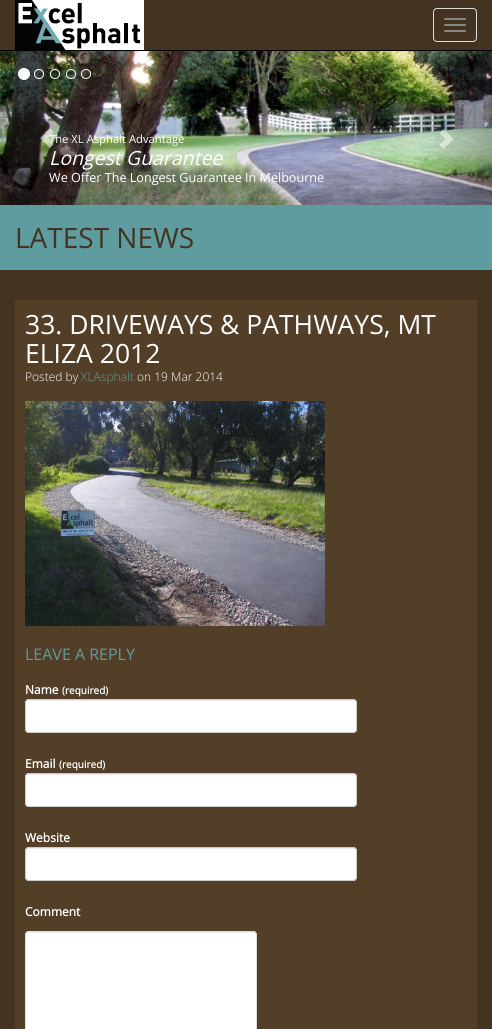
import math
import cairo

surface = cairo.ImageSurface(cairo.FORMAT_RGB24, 492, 1029)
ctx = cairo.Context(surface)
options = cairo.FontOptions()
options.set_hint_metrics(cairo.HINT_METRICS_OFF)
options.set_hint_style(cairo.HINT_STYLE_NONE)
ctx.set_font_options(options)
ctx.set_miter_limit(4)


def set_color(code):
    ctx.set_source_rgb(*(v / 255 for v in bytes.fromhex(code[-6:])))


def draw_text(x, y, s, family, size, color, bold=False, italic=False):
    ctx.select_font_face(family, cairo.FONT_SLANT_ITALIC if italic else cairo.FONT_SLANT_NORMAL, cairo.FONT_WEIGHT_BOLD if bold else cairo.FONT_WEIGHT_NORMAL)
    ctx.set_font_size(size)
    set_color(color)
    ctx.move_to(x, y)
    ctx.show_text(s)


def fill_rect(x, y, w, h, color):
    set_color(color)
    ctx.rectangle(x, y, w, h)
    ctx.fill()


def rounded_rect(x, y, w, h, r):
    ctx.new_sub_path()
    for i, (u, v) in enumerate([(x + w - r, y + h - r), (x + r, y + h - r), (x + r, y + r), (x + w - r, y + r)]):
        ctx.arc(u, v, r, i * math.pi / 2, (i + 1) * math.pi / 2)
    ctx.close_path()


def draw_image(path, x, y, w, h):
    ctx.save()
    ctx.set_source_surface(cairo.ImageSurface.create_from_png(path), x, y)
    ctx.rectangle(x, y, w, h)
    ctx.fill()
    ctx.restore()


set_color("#433320")
ctx.paint()
fill_rect(0, 50, 492, 1, "#000000")
draw_image("assets/img1.png", 15, 0, 129, 50)
rounded_rect(433.5, 8.5, 43, 33, 3.5)
set_color("#dddddd")
ctx.set_line_width(1)
ctx.stroke()
set_color("#888888")
rounded_rect(444, 18, 22, 2, 1)
ctx.fill()
rounded_rect(444, 24, 22, 2, 1)
ctx.fill()
rounded_rect(444, 30, 22, 2, 1)
ctx.fill()
draw_image("assets/img2.png", 0, 51, 492, 154)
set_color("#ffffff")
ctx.arc(24, 74, 5.5, 0, 2 * math.pi)
ctx.fill_preserve()
ctx.stroke()
ctx.arc(39, 74, 4.5, 0, 2 * math.pi)
ctx.stroke()
ctx.arc(55, 74, 4.5, 0, 2 * math.pi)
ctx.stroke()
ctx.arc(71, 74, 4.5, 0, 2 * math.pi)
ctx.stroke()
ctx.arc(86, 74, 4.5, 0, 2 * math.pi)
ctx.stroke()
ctx.set_source_rgba(1, 1, 1, 0.5)
ctx.new_path()
ctx.move_to(40, 138)
ctx.line_to(50, 148)
ctx.line_to(54, 144)
ctx.line_to(48, 138)
ctx.line_to(54, 132)
ctx.line_to(50, 128)
ctx.close_path()
ctx.fill()
draw_text(49, 143, "The XL Asphalt Advantage", "Open Sans", 11.25, "#ffffff")
draw_text(49, 165, "Longest Guarantee", "Open Sans", 19.5, "#ffffff", italic=True)
draw_text(49, 182, "We Offer The Longest Guarantee In Melbourne", "Open Sans", 12.6, "#ffffff")
ctx.set_source_rgba(1, 1, 1, 0.5)
ctx.new_path()
ctx.move_to(439.5, 145)
ctx.line_to(445.5, 139)
ctx.line_to(439.5, 133)
ctx.line_to(443.5, 129)
ctx.line_to(453.5, 139)
ctx.line_to(443.5, 149)
ctx.close_path()
ctx.fill()
fill_rect(0, 205, 492, 65, "#5e9ca0")
draw_text(15, 248, "LATEST NEWS", "Open Sans", 28, "#433320")
fill_rect(15, 300, 462, 729, "#533f28")
draw_text(25, 334, "33. DRIVEWAYS & PATHWAYS, MT", "Open Sans", 26.5, "#ffffff")
draw_text(25, 363, "ELIZA 2012", "Open Sans", 26.5, "#ffffff")
draw_text(25, 381, "Posted by", "Open Sans Light", 12, "#ffffff")
draw_text(81, 381, "XLAsphalt", "Open Sans Light", 12, "#5e9ca0")
draw_text(137, 381, "on 19 Mar 2014", "Open Sans Light", 12, "#ffffff")
draw_image("assets/img3.png", 25, 401, 300, 225)
draw_text(25, 660, "LEAVE A REPLY", "Open Sans", 16, "#5e9ca0")
draw_text(25, 694, "Name", "Open Sans", 12, "#ffffff", bold=True)
draw_text(62, 694, "(required)", "Open Sans", 10, "#ffffff", bold=True)
rounded_rect(25, 699, 332, 34, 4)
ctx.fill()
set_color("#ececec")
ctx.new_path()
ctx.move_to(29, 701)
ctx.line_to(353, 701)
ctx.curve_to(355, 701, 356, 702, 356, 704)
ctx.curve_to(356, 702, 355, 700, 353, 700)
ctx.line_to(29, 700)
ctx.curve_to(27, 700, 26, 702, 26, 704)
ctx.curve_to(26, 702, 27, 701, 29, 701)
ctx.close_path()
ctx.fill()
rounded_rect(25.5, 699.5, 331, 33, 3.5)
set_color("#cccccc")
ctx.stroke()
draw_text(25, 768, "Email", "Open Sans", 12, "#ffffff", bold=True)
draw_text(59, 768, "(required)", "Open Sans", 10, "#ffffff", bold=True)
rounded_rect(25, 773, 332, 34, 4)
ctx.fill()
set_color("#ececec")
ctx.new_path()
ctx.move_to(29, 775)
ctx.line_to(353, 775)
ctx.curve_to(355, 775, 356, 776, 356, 778)
ctx.curve_to(356, 776, 355, 774, 353, 774)
ctx.line_to(29, 774)
ctx.curve_to(27, 774, 26, 776, 26, 778)
ctx.curve_to(26, 776, 27, 775, 29, 775)
ctx.close_path()
ctx.fill()
rounded_rect(25.5, 773.5, 331, 33, 3.5)
set_color("#cccccc")
ctx.stroke()
draw_text(25, 842, "Website", "Open Sans", 12, "#ffffff", bold=True)
rounded_rect(25, 847, 332, 34, 4)
ctx.fill()
set_color("#ececec")
ctx.new_path()
ctx.move_to(29, 849)
ctx.line_to(353, 849)
ctx.curve_to(355, 849, 356, 850, 356, 852)
ctx.curve_to(356, 850, 355, 848, 353, 848)
ctx.line_to(29, 848)
ctx.curve_to(27, 848, 26, 850, 26, 852)
ctx.curve_to(26, 850, 27, 849, 29, 849)
ctx.close_path()
ctx.fill()
rounded_rect(25.5, 847.5, 331, 33, 3.5)
set_color("#cccccc")
ctx.stroke()
draw_text(25, 916, "Comment", "Open Sans", 12, "#ffffff", bold=True)
rounded_rect(25, 931, 232, 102, 4)
ctx.fill()
set_color("#ececec")
ctx.new_path()
ctx.move_to(29, 933)
ctx.line_to(253, 933)
ctx.curve_to(255, 933, 256, 934, 256, 936)
ctx.curve_to(256, 934, 255, 932, 253, 932)
ctx.line_to(29, 932)
ctx.curve_to(27, 932, 26, 934, 26, 936)
ctx.curve_to(26, 934, 27, 933, 29, 933)
ctx.close_path()
ctx.fill()
rounded_rect(25.5, 931.5, 231, 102, 3.5)
set_color("#dddddd")
ctx.stroke()
surface.write_to_png("output.png")
